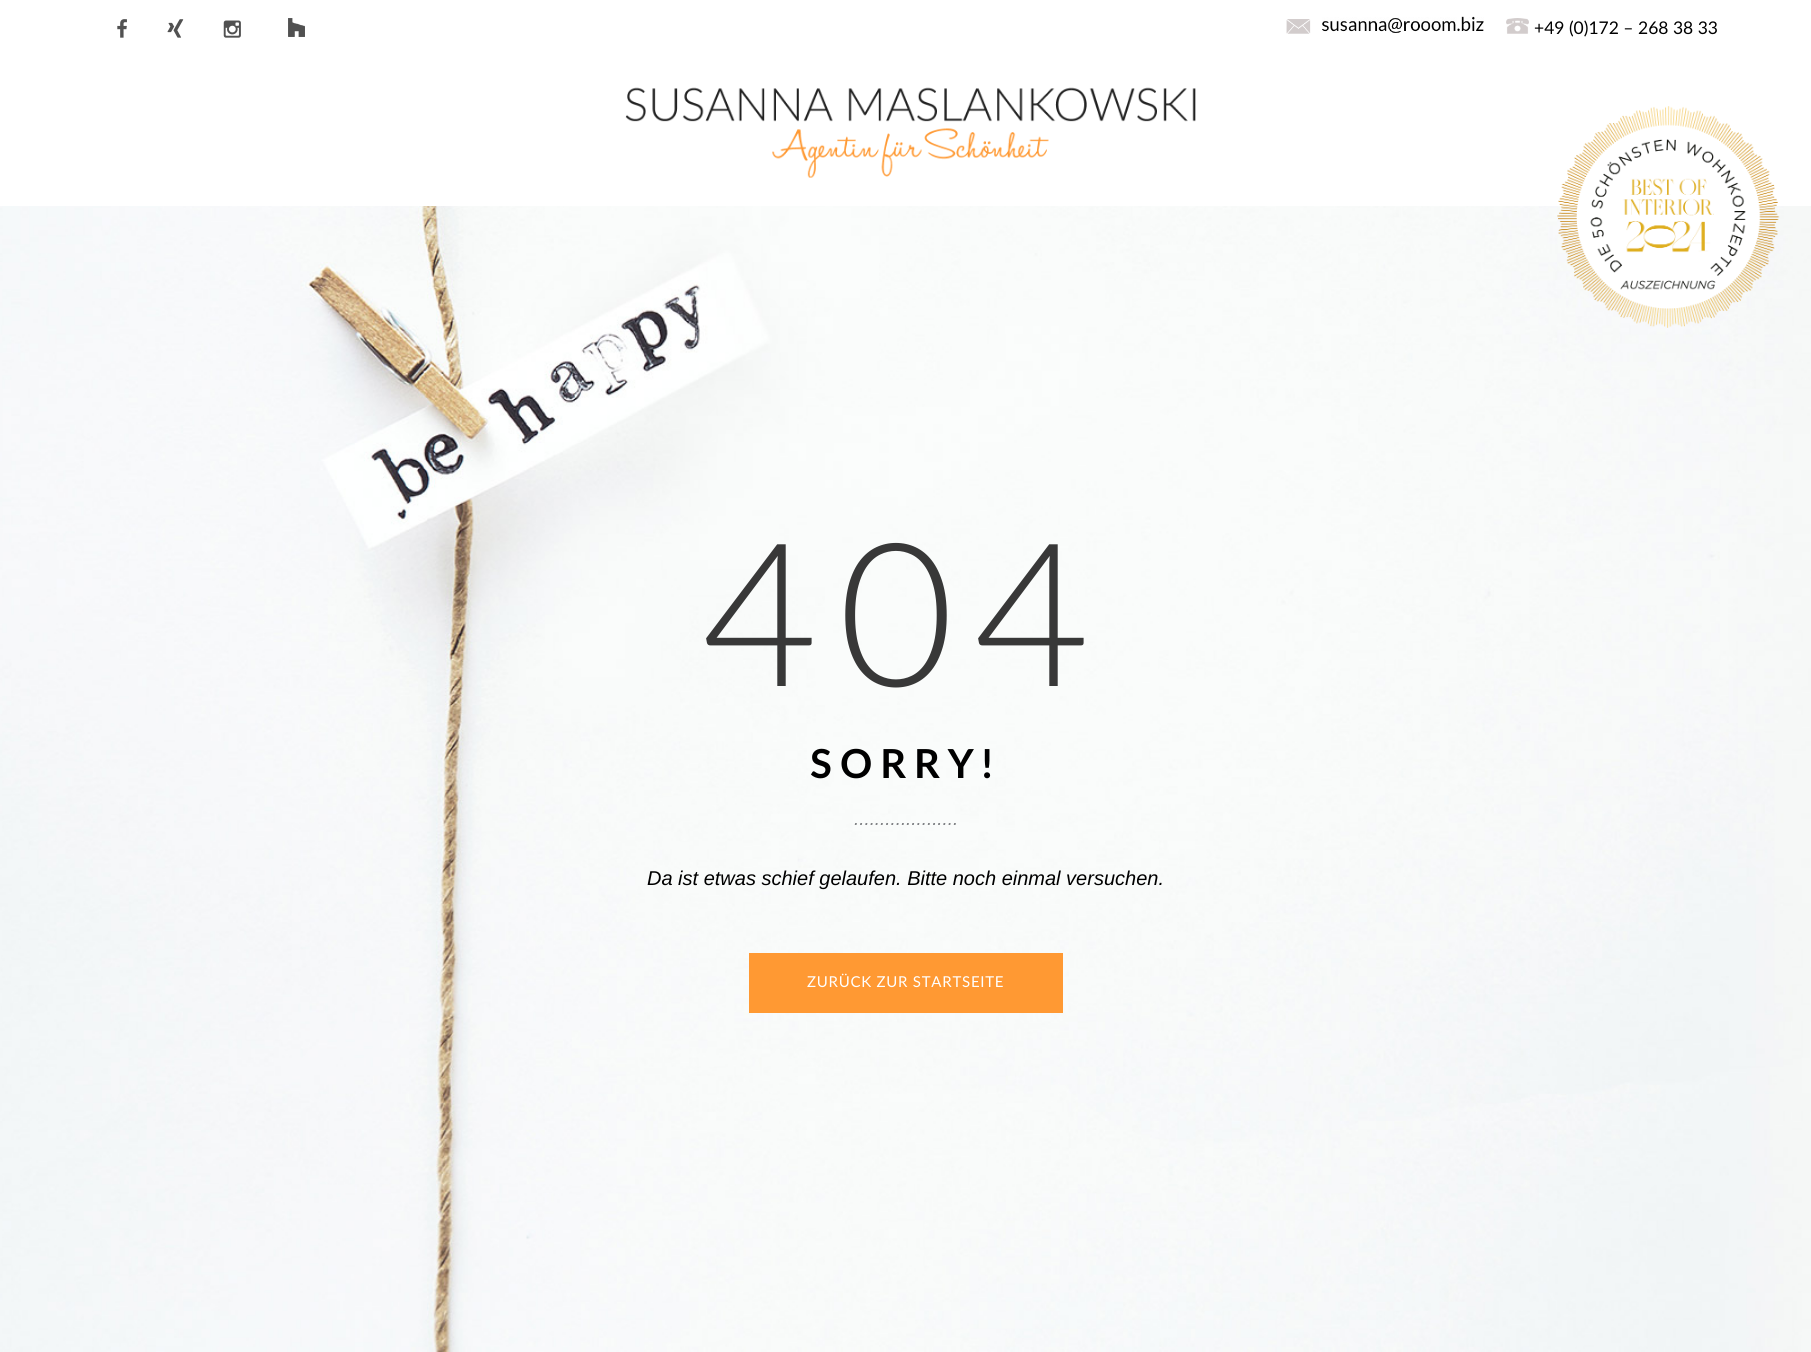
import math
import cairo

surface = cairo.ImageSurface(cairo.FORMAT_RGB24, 1811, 1352)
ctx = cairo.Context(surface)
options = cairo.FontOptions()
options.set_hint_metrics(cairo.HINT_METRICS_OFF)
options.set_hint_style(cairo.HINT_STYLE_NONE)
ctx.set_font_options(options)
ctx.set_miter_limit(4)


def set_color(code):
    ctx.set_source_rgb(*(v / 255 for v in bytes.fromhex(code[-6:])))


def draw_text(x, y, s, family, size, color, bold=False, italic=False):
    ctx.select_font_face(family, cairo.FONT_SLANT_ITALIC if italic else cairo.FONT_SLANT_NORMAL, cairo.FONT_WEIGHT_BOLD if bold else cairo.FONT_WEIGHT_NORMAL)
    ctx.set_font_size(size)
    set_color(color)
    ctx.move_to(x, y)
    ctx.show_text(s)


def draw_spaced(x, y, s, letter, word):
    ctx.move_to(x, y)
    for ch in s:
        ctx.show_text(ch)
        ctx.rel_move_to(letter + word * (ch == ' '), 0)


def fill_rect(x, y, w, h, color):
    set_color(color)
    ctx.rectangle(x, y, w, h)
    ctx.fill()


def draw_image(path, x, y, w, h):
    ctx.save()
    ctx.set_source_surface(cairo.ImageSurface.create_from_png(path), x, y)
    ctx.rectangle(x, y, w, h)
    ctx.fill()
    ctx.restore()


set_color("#ffffff")
ctx.paint()
draw_image("assets/img1.png", 0, 206, 1811, 1146)
draw_image("assets/img2.png", 117, 19, 10, 19)
draw_image("assets/img3.png", 167, 19, 17, 19)
draw_image("assets/img4.png", 223, 20, 18, 18)
draw_image("assets/img5.png", 288, 18, 17, 19)
draw_image("assets/img6.png", 1286, 19, 25, 15)
draw_image("assets/img7.png", 1322, 16, 162, 17)
draw_image("assets/img8.png", 1506, 18, 23, 16)
draw_text(1534, 34, "+49 (0)172 – 268 38 33", "Lato", 17.5, "#000000")
draw_image("assets/img9.png", 1557, 106, 223, 222)
draw_image("assets/img10.png", 625, 87, 571, 91)
ctx.select_font_face("Lato Light")
ctx.set_font_size(200)
set_color("#383838")
draw_spaced(702, 686, "404", 20, 0)
ctx.select_font_face("Lato", cairo.FONT_SLANT_NORMAL, cairo.FONT_WEIGHT_BOLD)
ctx.set_font_size(40)
set_color("#000000")
draw_spaced(810, 778, "SORRY!", 8, 0)
draw_text(854, 825, "....................", "Liberation Sans", 18.75, "#808285", italic=True)
draw_text(647, 885, "Da ist etwas schief gelaufen. Bitte noch einmal versuchen.", "Liberation Sans", 20, "#000000", italic=True)
fill_rect(749, 953, 314, 60, "#ff9933")
ctx.select_font_face("Lato")
ctx.set_font_size(15)
set_color("#ffffff")
draw_spaced(807, 987, "ZURÜCK ZUR STARTSEITE", 0.75, 0)
surface.write_to_png("output.png")
